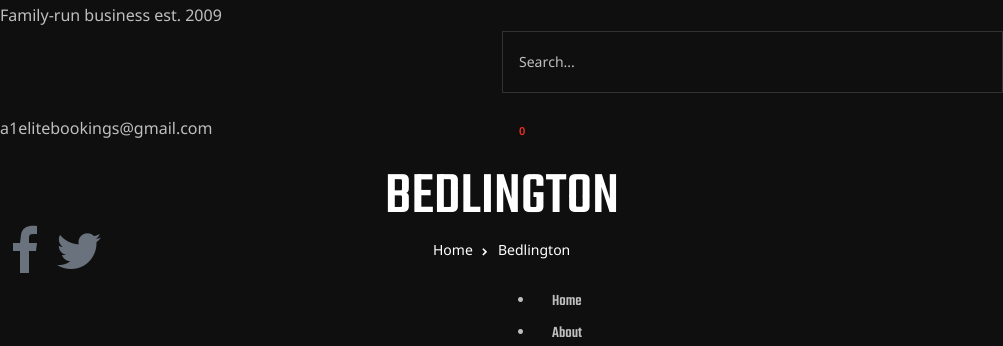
import math
import cairo

surface = cairo.ImageSurface(cairo.FORMAT_RGB24, 1003, 346)
ctx = cairo.Context(surface)
options = cairo.FontOptions()
options.set_hint_metrics(cairo.HINT_METRICS_OFF)
options.set_hint_style(cairo.HINT_STYLE_NONE)
ctx.set_font_options(options)
ctx.set_miter_limit(4)


def set_color(code):
    ctx.set_source_rgb(*(v / 255 for v in bytes.fromhex(code[-6:])))


def draw_text(x, y, s, family, size, color, bold=False, italic=False):
    ctx.select_font_face(family, cairo.FONT_SLANT_ITALIC if italic else cairo.FONT_SLANT_NORMAL, cairo.FONT_WEIGHT_BOLD if bold else cairo.FONT_WEIGHT_NORMAL)
    ctx.set_font_size(size)
    set_color(color)
    ctx.move_to(x, y)
    ctx.show_text(s)


def draw_image(path, x, y, w, h):
    ctx.save()
    ctx.set_source_surface(cairo.ImageSurface.create_from_png(path), x, y)
    ctx.rectangle(x, y, w, h)
    ctx.fill()
    ctx.restore()


set_color("#0f0f0f")
ctx.paint()
draw_text(0, 21, "Family-run business est. 2009", "Noto Sans", 16, "#bebebe")
draw_text(0, 134, "a1elitebookings@gmail.com", "Noto Sans", 16, "#bebebe")
set_color("#69727d")
ctx.new_path()
ctx.move_to(37, 226)
ctx.curve_to(31, 225, 22, 226, 21, 235)
ctx.line_to(20, 243)
ctx.line_to(13, 243)
ctx.line_to(13, 251)
ctx.line_to(20, 251)
ctx.line_to(20, 273)
ctx.line_to(29, 273)
ctx.line_to(29, 251)
ctx.line_to(36, 251)
ctx.line_to(37, 243)
ctx.line_to(29, 243)
ctx.curve_to(29, 234, 28, 234, 37, 234)
ctx.close_path()
ctx.fill()
draw_image("assets/img1.png", 57, 233, 44, 36)
ctx.rectangle(502.5, 31.5, 500, 61)
set_color("#323232")
ctx.set_line_width(1)
ctx.stroke()
draw_text(519, 67, "Search...", "Noto Sans", 14, "#bebebe")
draw_text(519, 135, "0", "Noto Sans SemiBold", 11, "#ee2f26")
set_color("#bebebe")
ctx.new_path()
ctx.arc(520.5, 299.5, 2.5, 0, 2 * math.pi)
ctx.fill()
draw_text(552, 305, "Home", "Teko Medium", 16, "#bebebe")
ctx.new_path()
ctx.arc(520.5, 331.5, 2.5, 0, 2 * math.pi)
ctx.fill()
draw_text(552, 337, "About", "Teko Medium", 16, "#bebebe")
draw_text(385, 212, "BEDLINGTON", "Teko Medium", 60, "#ffffff")
draw_text(433, 255, "Home", "Noto Sans", 14, "#ffffff")
draw_image("assets/img2.png", 482, 248, 5, 8)
draw_text(498, 255, "Bedlington", "Noto Sans", 14, "#ffffff")
surface.write_to_png("output.png")
